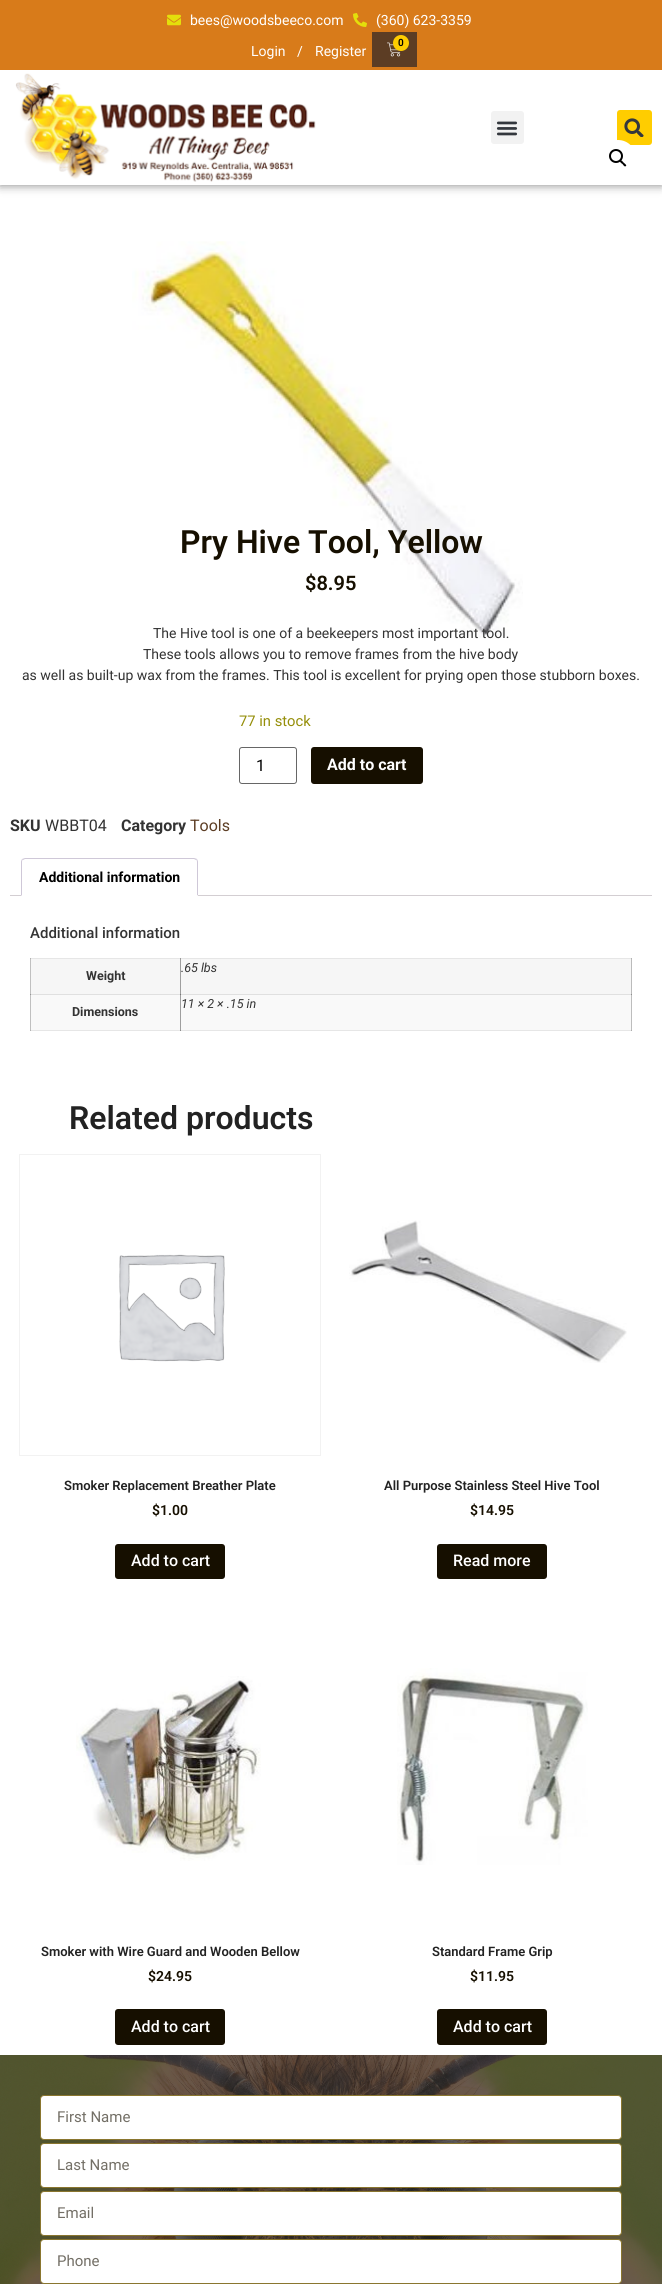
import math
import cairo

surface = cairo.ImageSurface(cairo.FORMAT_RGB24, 662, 2284)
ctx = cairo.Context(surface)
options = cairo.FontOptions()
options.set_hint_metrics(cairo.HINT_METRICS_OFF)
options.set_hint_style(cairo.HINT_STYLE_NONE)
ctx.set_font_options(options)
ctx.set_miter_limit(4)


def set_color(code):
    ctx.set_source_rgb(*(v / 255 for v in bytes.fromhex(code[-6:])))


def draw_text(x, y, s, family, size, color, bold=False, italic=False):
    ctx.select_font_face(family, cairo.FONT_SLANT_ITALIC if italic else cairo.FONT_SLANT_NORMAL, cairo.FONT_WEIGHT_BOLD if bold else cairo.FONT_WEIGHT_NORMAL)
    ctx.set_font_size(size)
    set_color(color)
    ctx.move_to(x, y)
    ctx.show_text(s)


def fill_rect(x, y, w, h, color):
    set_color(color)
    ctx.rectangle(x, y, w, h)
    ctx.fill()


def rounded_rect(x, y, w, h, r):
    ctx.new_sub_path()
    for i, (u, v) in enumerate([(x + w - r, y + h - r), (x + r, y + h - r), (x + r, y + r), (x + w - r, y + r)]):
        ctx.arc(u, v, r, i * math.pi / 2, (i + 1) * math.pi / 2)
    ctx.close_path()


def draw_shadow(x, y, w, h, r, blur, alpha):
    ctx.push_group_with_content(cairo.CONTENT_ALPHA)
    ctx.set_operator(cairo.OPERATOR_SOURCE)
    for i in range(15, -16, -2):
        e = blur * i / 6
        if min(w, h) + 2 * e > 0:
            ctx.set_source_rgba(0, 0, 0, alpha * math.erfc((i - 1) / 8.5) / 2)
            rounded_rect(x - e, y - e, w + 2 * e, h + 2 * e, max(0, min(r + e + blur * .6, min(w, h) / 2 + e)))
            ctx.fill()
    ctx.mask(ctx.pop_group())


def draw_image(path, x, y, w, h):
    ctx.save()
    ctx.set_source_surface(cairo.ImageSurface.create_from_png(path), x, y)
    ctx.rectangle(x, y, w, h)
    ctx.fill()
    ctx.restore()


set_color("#ffffff")
ctx.paint()
fill_rect(30, 958, 1, 73, "#c0c0c0")
fill_rect(30, 994, 1, 1, "#979797")
fill_rect(30, 1030, 602, 1, "#e6e6e6")
fill_rect(30, 1030, 1, 1, "#b3b3b3")
fill_rect(180, 1030, 1, 1, "#8b8b8b")
fill_rect(631, 1030, 1, 1, "#adadad")
set_color("#000000")
draw_shadow(0, 0, 662, 185, 0, 5, 0.5)
fill_rect(0, 0, 662, 70, "#d87b1a")
draw_image("assets/img1.png", 167, 14, 14, 12)
draw_text(190, 25, "bees@woodsbeeco.com", "Roboto", 14, "#ffffff")
draw_image("assets/img2.png", 353, 13, 14, 14)
draw_text(376, 25, "(360) 623-3359", "Roboto", 14, "#ffffff")
fill_rect(372, 32, 45, 35, "#5c3d24")
draw_image("assets/img3.png", 387, 42, 14, 15)
set_color("#ffcd00")
ctx.arc(401, 43, 8, 0, 2 * math.pi)
ctx.fill()
draw_text(398, 46, "0", "Roboto SemiBold", 10, "#000000")
draw_text(251, 56, "Login", "Roboto", 14, "#ffffff")
draw_text(297, 56, "/", "Roboto", 14, "#ffffff")
draw_text(315, 56, "Register", "Roboto", 14, "#ffffff")
fill_rect(0, 70, 662, 115, "#ffffff")
draw_image("assets/img4.png", 15, 73, 301, 109)
set_color("#f2f2f2")
rounded_rect(491, 111, 33, 33, 3)
ctx.fill()
draw_image("assets/img5.png", 496, 121, 22, 15)
set_color("#ffcd00")
rounded_rect(617, 110, 35, 35, 3)
ctx.fill()
draw_image("assets/img6.png", 624, 118, 20, 19)
set_color("#ffffff")
ctx.arc(618, 158, 18, 0, 2 * math.pi)
ctx.fill()
ctx.arc(616, 156, 6, 0, 2 * math.pi)
set_color("#000000")
ctx.stroke()
ctx.new_path()
ctx.move_to(620, 160.5)
ctx.curve_to(621.5, 159.5, 623, 162, 623.5, 162.5)
ctx.curve_to(624.5, 163.5, 627, 165, 626, 166)
ctx.curve_to(624.5, 167.5, 623, 164.5, 622.5, 164)
ctx.curve_to(621.5, 163.5, 619, 161.5, 620, 160.5)
ctx.close_path()
ctx.fill()
draw_image("assets/img7.png", 132, 241, 391, 397)
draw_text(180, 553, "Pry Hive Tool, Yellow", "Roboto SemiBold", 32, "#160f00")
draw_text(305, 590, "$8.95", "Roboto SemiBold", 20, "#160f00")
draw_text(153, 638, "The Hive tool is one of a beekeepers most important tool.", "Roboto", 14, "#333333")
draw_text(143, 659, "These tools allows you to remove frames from the hive body", "Roboto", 14, "#333333")
draw_text(22, 680, "as well as built-up wax from the frames. This tool is excellent for prying open those stubborn boxes.", "Roboto", 14, "#333333")
draw_text(239, 726, "77 in stock", "Roboto", 14.75, "#958e09")
rounded_rect(239.5, 747.5, 57, 36, 2.5)
set_color("#666666")
ctx.set_line_width(1)
ctx.stroke()
draw_text(256, 771, "1", "Roboto", 16, "#000000")
set_color("#160f00")
rounded_rect(311, 747, 112, 37, 3)
ctx.fill()
draw_text(327, 770, "Add to cart", "Roboto", 16, "#ffffff", bold=True)
draw_text(10, 831, "SKU", "Roboto", 16, "#333333", bold=True)
draw_text(45, 831, "WBBT04", "Roboto", 16, "#333333")
draw_text(121, 831, "Category", "Roboto", 16, "#333333", bold=True)
draw_text(190, 831, "Tools", "Roboto", 16, "#5c3d24")
fill_rect(10, 895, 642, 1, "#d3ced2")
set_color("#ffffff")
ctx.new_path()
ctx.move_to(25, 858)
ctx.line_to(194, 858)
ctx.curve_to(196, 858, 198, 860, 198, 862)
ctx.line_to(198, 896)
ctx.line_to(21, 896)
ctx.line_to(21, 862)
ctx.curve_to(21, 860, 23, 858, 25, 858)
ctx.close_path()
ctx.fill()
set_color("#cfc8d8")
ctx.new_path()
ctx.move_to(25, 858)
ctx.line_to(22, 859)
ctx.line_to(23, 860)
ctx.line_to(25, 859)
ctx.line_to(194, 859)
ctx.line_to(196, 860)
ctx.line_to(197, 859)
ctx.line_to(194, 858)
ctx.close_path()
ctx.fill()
ctx.new_path()
ctx.move_to(198, 896)
ctx.line_to(198, 862)
ctx.curve_to(198, 861, 197.5, 860, 197, 859)
ctx.line_to(196, 860)
ctx.curve_to(197, 860, 197, 861, 197, 862)
ctx.line_to(197, 895)
ctx.close_path()
ctx.fill()
set_color("#ffffff")
ctx.new_path()
ctx.move_to(198, 896)
ctx.line_to(197, 895)
ctx.line_to(22, 895)
ctx.line_to(21, 896)
ctx.close_path()
ctx.fill()
set_color("#cfc8d8")
ctx.new_path()
ctx.move_to(21, 896)
ctx.line_to(22, 895)
ctx.line_to(22, 862)
ctx.curve_to(22, 861, 22, 860, 23, 860)
ctx.line_to(22, 859)
ctx.curve_to(21.5, 860, 21, 861, 21, 862)
ctx.close_path()
ctx.fill()
draw_text(39, 882, "Additional information", "Roboto", 14, "#000000", bold=True)
draw_text(30, 938, "Additional information", "Roboto Medium", 15, "#333333")
fill_rect(30, 958, 602, 1, "#e6e6e6")
fill_rect(30, 958, 1, 1, "#b3b3b3")
fill_rect(180, 958, 1, 1, "#9a9a9a")
fill_rect(631, 958, 1, 1, "#b3b3b3")
fill_rect(181, 959, 450, 35, "#f6f6f6")
fill_rect(631, 959, 1, 35, "#bbbbbb")
draw_text(181, 972, ".65 lbs", "Roboto", 12.5, "#333333", italic=True)
fill_rect(31, 959, 149, 35, "#f6f6f6")
fill_rect(180, 959, 1, 35, "#9e9e9e")
draw_text(86, 980, "Weight", "Roboto", 12.5, "#333333", bold=True)
fill_rect(181, 995, 450, 35, "#f9f9f9")
fill_rect(31, 994, 601, 1, "#e0e0e0")
fill_rect(631, 994, 1, 36, "#bdbdbd")
fill_rect(631, 994, 1, 1, "#8f8f8f")
draw_text(181, 1008, "11 × 2 × .15 in", "Roboto", 12.5, "#333333", italic=True)
fill_rect(31, 995, 149, 35, "#f9f9f9")
fill_rect(180, 994, 1, 36, "#9f9f9f")
fill_rect(180, 994, 1, 1, "#777777")
draw_text(72, 1016, "Dimensions", "Roboto", 12.5, "#333333", bold=True)
draw_text(69, 1129, "Related products", "Roboto SemiBold", 32, "#222222")
ctx.rectangle(19.5, 1154.5, 301, 301)
set_color("#f2f2f2")
ctx.stroke()
draw_image("assets/img8.png", 119, 1254, 106, 108)
draw_text(64, 1490, "Smoker Replacement Breather Plate", "Roboto SemiBold", 13, "#222222")
draw_text(152, 1515, "$1.00", "Roboto SemiBold", 14, "#160f00")
rounded_rect(115, 1544, 110, 35, 3)
ctx.fill()
draw_text(131, 1566, "Add to cart", "Roboto Medium", 16, "#ffffff")
draw_image("assets/img9.png", 349, 1220, 278, 143)
draw_text(384, 1490, "All Purpose Stainless Steel Hive Tool", "Roboto SemiBold", 13, "#222222")
draw_text(470, 1515, "$14.95", "Roboto SemiBold", 14, "#160f00")
rounded_rect(437, 1544, 110, 35, 3)
ctx.fill()
draw_text(453, 1566, "Read more", "Roboto Medium", 16, "#ffffff")
draw_image("assets/img10.png", 76, 1676, 185, 185)
draw_text(41, 1956, "Smoker with Wire Guard and Wooden Bellow", "Roboto SemiBold", 13, "#222222")
draw_text(148, 1981, "$24.95", "Roboto SemiBold", 14, "#160f00")
rounded_rect(115, 2009, 110, 36, 3)
ctx.fill()
draw_text(131, 2032, "Add to cart", "Roboto Medium", 16, "#ffffff")
draw_image("assets/img11.png", 397, 1668, 191, 197)
draw_text(432, 1956, "Standard Frame Grip", "Roboto SemiBold", 13, "#222222")
draw_text(470, 1981, "$11.95", "Roboto SemiBold", 14, "#160f00")
rounded_rect(437, 2009, 110, 36, 3)
ctx.fill()
draw_text(453, 2032, "Add to cart", "Roboto Medium", 16, "#ffffff")
draw_image("assets/img12.png", 0, 2055, 662, 229)
rounded_rect(40.5, 2095.5, 581, 44, 3.5)
ctx.fill_preserve()
set_color("#8a762f")
ctx.stroke()
draw_text(57, 2122, "First Name", "Roboto", 15, "#736f66")
set_color("#ffffff")
rounded_rect(40.5, 2143.5, 581, 44, 3.5)
ctx.fill_preserve()
set_color("#8a762f")
ctx.stroke()
draw_text(57, 2170, "Last Name", "Roboto", 15, "#736f66")
set_color("#ffffff")
rounded_rect(40.5, 2191.5, 581, 44, 3.5)
ctx.fill_preserve()
set_color("#8a762f")
ctx.stroke()
draw_text(57, 2218, "Email", "Roboto", 15, "#736f66")
set_color("#ffffff")
rounded_rect(40.5, 2239.5, 581, 44, 3.5)
ctx.fill_preserve()
set_color("#8a762f")
ctx.stroke()
draw_text(57, 2266, "Phone", "Roboto", 15, "#736f66")
surface.write_to_png("output.png")
